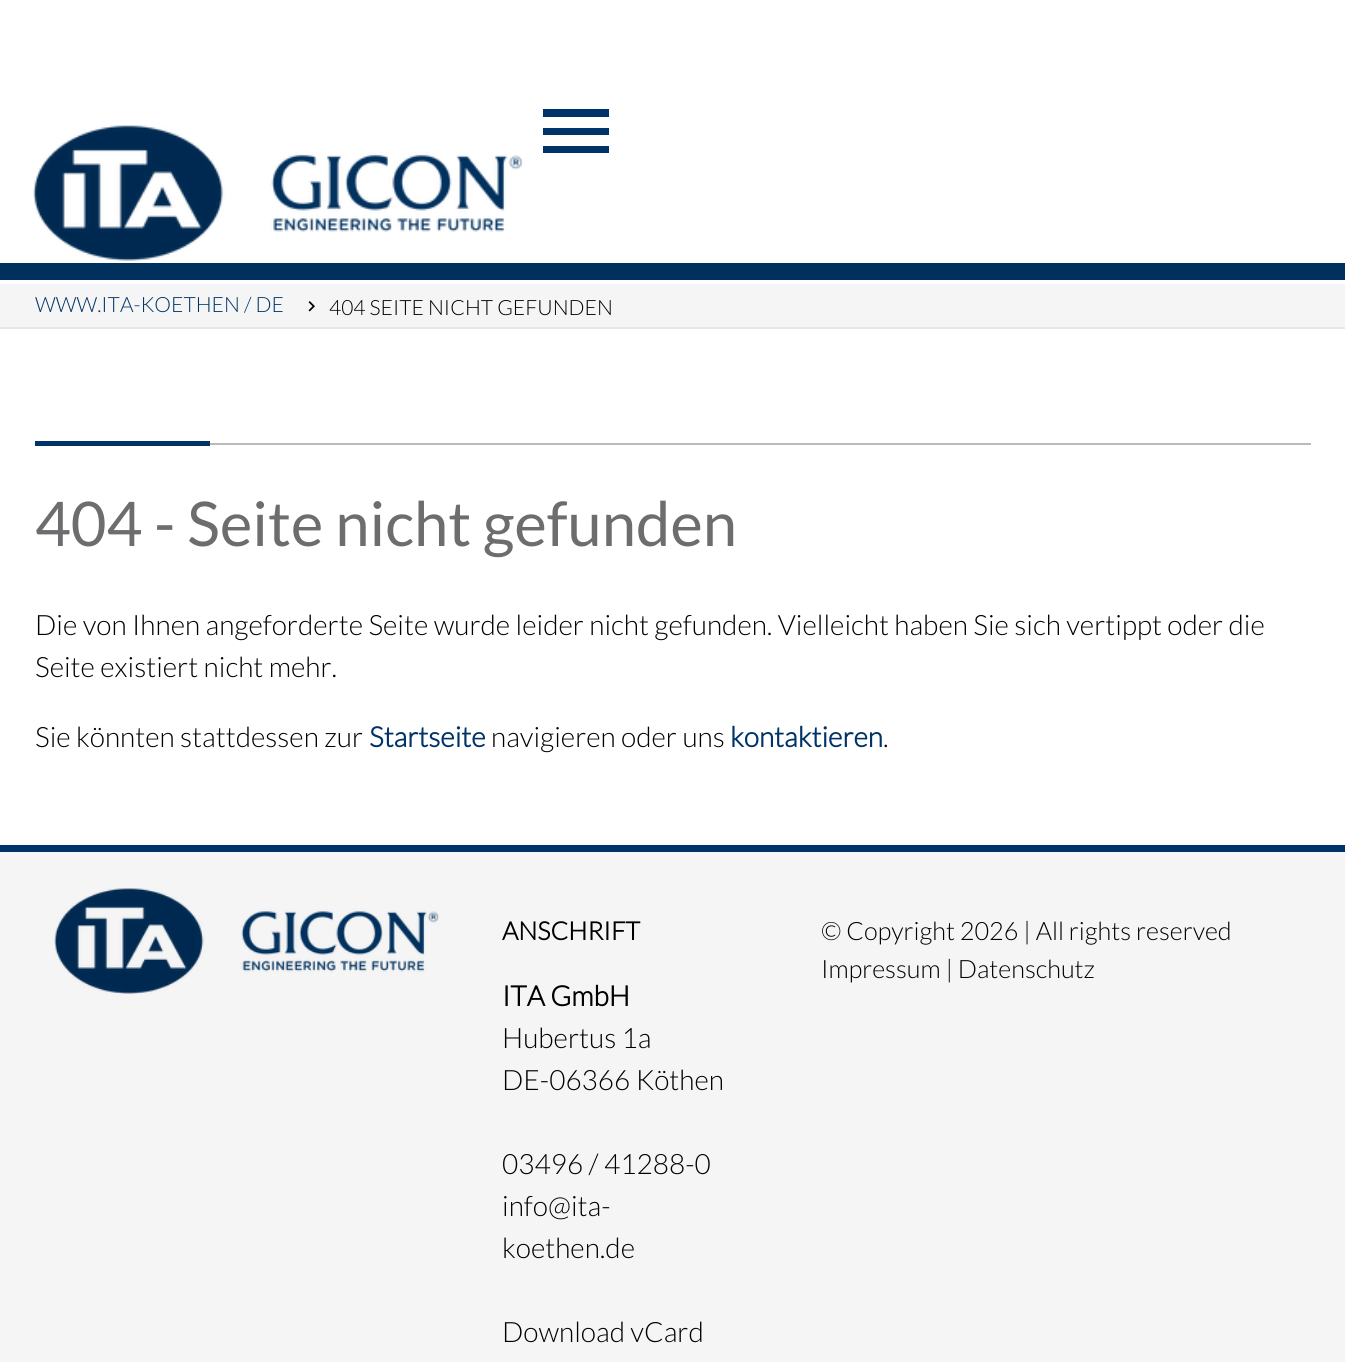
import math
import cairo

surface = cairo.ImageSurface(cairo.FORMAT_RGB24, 1345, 1362)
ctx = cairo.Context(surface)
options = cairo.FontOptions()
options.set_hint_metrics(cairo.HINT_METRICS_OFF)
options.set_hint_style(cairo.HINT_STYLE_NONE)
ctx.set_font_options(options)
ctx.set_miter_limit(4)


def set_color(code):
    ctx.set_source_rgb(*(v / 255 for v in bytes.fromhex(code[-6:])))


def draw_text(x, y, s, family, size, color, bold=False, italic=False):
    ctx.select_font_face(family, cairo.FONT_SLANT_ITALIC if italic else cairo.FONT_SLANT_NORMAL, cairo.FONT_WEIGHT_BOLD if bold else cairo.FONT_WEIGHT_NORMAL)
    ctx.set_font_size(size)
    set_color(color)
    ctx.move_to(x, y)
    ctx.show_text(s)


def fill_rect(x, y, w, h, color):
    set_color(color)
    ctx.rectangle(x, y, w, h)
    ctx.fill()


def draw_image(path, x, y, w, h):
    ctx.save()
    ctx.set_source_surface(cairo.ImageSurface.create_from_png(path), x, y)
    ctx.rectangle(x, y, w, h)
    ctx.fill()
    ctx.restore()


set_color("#ffffff")
ctx.paint()
fill_rect(0, 263, 1345, 17, "#00305e")
draw_image("assets/img1.png", 33, 125, 490, 136)
set_color("#003468")
ctx.new_path()
ctx.move_to(543, 109)
ctx.line_to(609, 109)
ctx.line_to(609, 117)
ctx.line_to(543, 117)
ctx.close_path()
ctx.move_to(543, 135)
ctx.line_to(543, 128)
ctx.line_to(609, 128)
ctx.line_to(609, 135)
ctx.close_path()
ctx.move_to(543, 153)
ctx.line_to(543, 146)
ctx.line_to(609, 146)
ctx.line_to(609, 153)
ctx.close_path()
ctx.fill()
fill_rect(0, 284, 1345, 43, "#f5f5f5")
fill_rect(0, 327, 1345, 2, "#e7e7e8")
draw_text(35, 312, "WWW.ITA-KOETHEN / DE", "Lato Light", 21, "#003468")
draw_image("assets/img2.png", 308, 301, 7, 11)
draw_text(329, 315, "404 SEITE NICHT GEFUNDEN", "Lato Light", 21, "#000000")
fill_rect(210, 443, 1101, 2, "#bababa")
fill_rect(35, 441, 175, 5, "#003468")
draw_text(35, 546, "404 - Seite nicht gefunden", "Lato", 61.6, "#6d6d6f")
draw_text(35, 635, "Die von Ihnen angeforderte Seite wurde leider nicht gefunden. Vielleicht haben Sie sich vertippt oder die", "Lato Light", 28, "#000000")
draw_text(35, 677, "Seite existiert nicht mehr.", "Lato Light", 28, "#000000")
draw_text(35, 747, "Sie könnten stattdessen zur", "Lato Light", 28, "#000000")
draw_text(369, 747, "Startseite", "Lato", 28, "#003468", bold=True)
draw_text(491, 747, "navigieren oder uns", "Lato Light", 28, "#000000")
draw_text(730, 747, "kontaktieren", "Lato", 28, "#003468", bold=True)
draw_text(883, 747, ".", "Lato Light", 28, "#000000")
fill_rect(0, 852, 1345, 510, "#f5f5f5")
fill_rect(0, 845, 1345, 7, "#003468")
draw_image("assets/img3.png", 54, 888, 385, 106)
draw_text(502, 940, "ANSCHRIFT", "Lato", 25.25, "#000000", bold=True)
draw_text(502, 1006, "ITA GmbH", "Lato", 28, "#000000", bold=True)
draw_text(502, 1048, "Hubertus 1a", "Lato Light", 28, "#000000")
draw_text(502, 1090, "DE-06366 Köthen", "Lato Light", 28, "#000000")
draw_text(502, 1174, "03496 / 41288-0", "Lato Light", 28, "#000000")
draw_text(502, 1216, "info@ita-", "Lato Light", 28, "#000000")
draw_text(502, 1258, "koethen.de", "Lato Light", 28, "#000000")
draw_text(502, 1342, "Download vCard", "Lato Light", 28, "#000000")
draw_text(821, 940, "© Copyright 2026 | All rights reserved", "Lato Light", 25.25, "#000000")
draw_text(821, 978, "Impressum | Datenschutz", "Lato Light", 25.25, "#000000")
surface.write_to_png("output.png")
